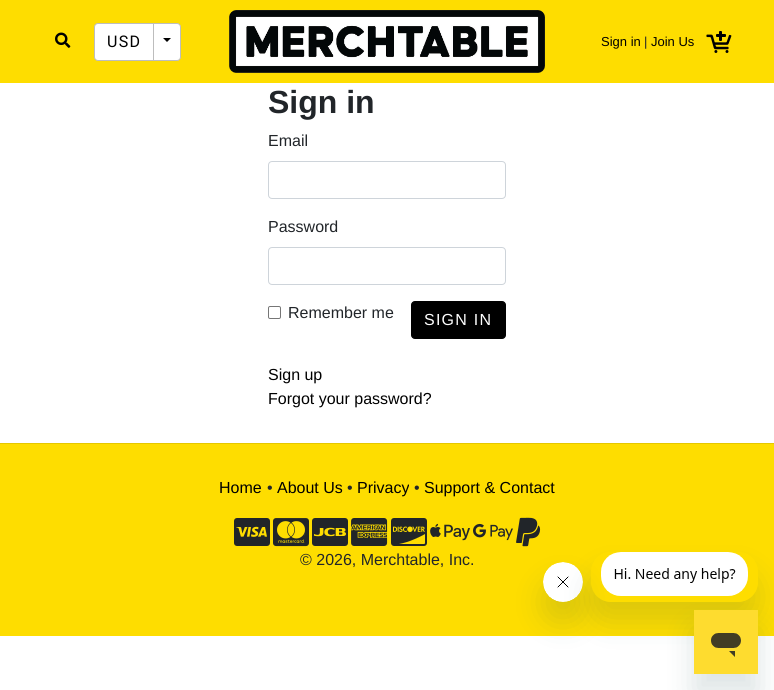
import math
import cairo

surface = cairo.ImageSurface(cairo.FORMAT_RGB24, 774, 690)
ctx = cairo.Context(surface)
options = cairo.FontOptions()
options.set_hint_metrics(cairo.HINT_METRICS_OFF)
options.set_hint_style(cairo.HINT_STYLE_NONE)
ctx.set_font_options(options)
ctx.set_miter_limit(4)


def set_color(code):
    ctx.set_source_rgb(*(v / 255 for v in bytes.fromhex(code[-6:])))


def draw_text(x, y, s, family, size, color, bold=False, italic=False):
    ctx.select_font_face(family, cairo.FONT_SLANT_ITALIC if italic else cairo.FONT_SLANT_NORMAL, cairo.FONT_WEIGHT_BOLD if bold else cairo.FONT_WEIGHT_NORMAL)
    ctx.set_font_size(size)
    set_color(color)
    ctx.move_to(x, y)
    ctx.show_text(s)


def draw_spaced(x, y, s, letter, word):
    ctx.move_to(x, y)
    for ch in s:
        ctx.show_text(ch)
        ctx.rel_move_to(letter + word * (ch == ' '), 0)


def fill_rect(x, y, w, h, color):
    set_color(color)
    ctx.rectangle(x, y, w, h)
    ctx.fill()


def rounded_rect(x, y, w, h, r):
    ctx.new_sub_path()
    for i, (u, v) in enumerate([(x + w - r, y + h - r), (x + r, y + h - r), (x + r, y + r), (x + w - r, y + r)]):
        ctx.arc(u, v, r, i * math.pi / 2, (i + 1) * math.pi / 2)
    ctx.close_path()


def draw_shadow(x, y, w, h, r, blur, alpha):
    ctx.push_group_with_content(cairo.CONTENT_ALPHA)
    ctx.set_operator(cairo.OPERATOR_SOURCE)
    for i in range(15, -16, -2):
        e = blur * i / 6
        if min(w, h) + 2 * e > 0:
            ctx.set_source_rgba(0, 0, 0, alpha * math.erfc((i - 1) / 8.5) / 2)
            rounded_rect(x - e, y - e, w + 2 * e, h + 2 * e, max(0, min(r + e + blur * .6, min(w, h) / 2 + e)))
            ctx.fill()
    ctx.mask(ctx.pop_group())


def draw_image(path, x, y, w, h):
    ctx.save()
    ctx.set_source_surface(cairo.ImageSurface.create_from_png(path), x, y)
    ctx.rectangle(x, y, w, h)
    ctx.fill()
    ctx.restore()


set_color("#ffffff")
ctx.paint()
fill_rect(0, 0, 774, 83, "#fedd00")
draw_image("assets/img1.png", 55, 32, 16, 16)
set_color("#ffffff")
ctx.new_path()
ctx.move_to(98, 23.5)
ctx.line_to(153.5, 23.5)
ctx.line_to(153.5, 60.5)
ctx.line_to(98, 60.5)
ctx.curve_to(96, 60.5, 94.5, 59, 94.5, 57)
ctx.line_to(94.5, 27)
ctx.curve_to(94.5, 25, 96, 23.5, 98, 23.5)
ctx.close_path()
ctx.fill_preserve()
set_color("#bdbdbd")
ctx.set_line_width(1)
ctx.stroke()
ctx.select_font_face("Roboto")
ctx.set_font_size(16)
set_color("#000000")
draw_spaced(107, 47, "USD", 1.25, 0)
set_color("#ffffff")
ctx.new_path()
ctx.move_to(153.5, 23.5)
ctx.line_to(177, 23.5)
ctx.curve_to(179, 23.5, 180.5, 25, 180.5, 27)
ctx.line_to(180.5, 57)
ctx.curve_to(180.5, 59, 179, 60.5, 177, 60.5)
ctx.line_to(153.5, 60.5)
ctx.close_path()
ctx.fill_preserve()
set_color("#bdbdbd")
ctx.stroke()
set_color("#000000")
ctx.new_path()
ctx.move_to(163, 38)
ctx.line_to(171, 38)
ctx.line_to(167, 42)
ctx.close_path()
ctx.fill()
draw_image("assets/img2.png", 229, 10, 316, 63)
draw_text(601, 46, "Sign in", "Liberation Sans", 13, "#000000")
draw_text(644, 46, "|", "Liberation Sans", 13, "#212529")
draw_text(651, 46, "Join Us", "Liberation Sans", 13, "#000000")
draw_image("assets/img3.png", 706, 31, 26, 22)
draw_text(268, 113, "Sign in", "Liberation Sans", 32, "#212529", bold=True)
draw_text(268, 146, "Email", "Liberation Sans", 16, "#212529")
rounded_rect(268.5, 161.5, 237, 37, 3.5)
set_color("#ced4da")
ctx.stroke()
draw_text(268, 232, "Password", "Liberation Sans", 16, "#212529")
rounded_rect(268.5, 247.5, 237, 37, 3.5)
set_color("#ced4da")
ctx.stroke()
rounded_rect(268.5, 306.5, 12, 12, 1.5)
set_color("#767676")
ctx.stroke()
draw_text(288, 318, "Remember me", "Liberation Sans", 16, "#212529")
set_color("#000000")
rounded_rect(411.5, 301.5, 94, 37, 3.5)
ctx.fill_preserve()
ctx.stroke()
set_color("#ffffff")
draw_spaced(424, 325, "SIGN IN", 1.25, 0)
draw_text(268, 380, "Sign up", "Liberation Sans", 16, "#000000")
draw_text(268, 404, "Forgot your password?", "Liberation Sans", 16, "#000000")
fill_rect(0, 444, 774, 192, "#fedd00")
fill_rect(0, 443, 774, 1, "#e5c700")
draw_text(219, 493, "Home", "Liberation Sans", 16, "#000000")
draw_text(267, 493, "•", "Liberation Sans", 16, "#212529")
draw_text(277, 493, "About Us", "Liberation Sans", 16, "#000000")
draw_text(347, 493, "•", "Liberation Sans", 16, "#212529")
draw_text(357, 493, "Privacy", "Liberation Sans", 16, "#000000")
draw_text(414, 493, "•", "Liberation Sans", 16, "#212529")
draw_text(424, 493, "Support & Contact", "Liberation Sans", 16, "#000000")
draw_image("assets/img4.png", 234, 518, 36, 28)
draw_image("assets/img5.png", 273, 518, 36, 29)
draw_image("assets/img6.png", 312, 518, 36, 28)
draw_image("assets/img7.png", 351, 518, 37, 28)
draw_image("assets/img8.png", 391, 518, 36, 28)
draw_image("assets/img9.png", 430, 523, 40, 18)
draw_image("assets/img10.png", 473, 523, 40, 18)
draw_image("assets/img11.png", 516, 517, 25, 30)
draw_text(300, 565, "© 2026, Merchtable, Inc.", "Liberation Sans", 16, "#212529")
set_color("#17494d")
draw_shadow(543, 582, 40, 40, 20, 15, 0.15)
draw_image("assets/img13.png", 543, 562, 40, 40)
ctx.save()
ctx.set_fill_rule(cairo.FILL_RULE_EVEN_ODD)
ctx.new_path()
ctx.move_to(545, 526)
ctx.line_to(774, 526)
ctx.line_to(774, 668)
ctx.line_to(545, 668)
ctx.close_path()
ctx.move_to(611, 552)
ctx.line_to(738, 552)
ctx.curve_to(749, 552, 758, 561, 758, 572)
ctx.line_to(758, 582)
ctx.curve_to(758, 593, 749, 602, 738, 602)
ctx.line_to(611, 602)
ctx.curve_to(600, 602, 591, 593, 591, 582)
ctx.line_to(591, 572)
ctx.curve_to(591, 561, 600, 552, 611, 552)
ctx.close_path()
ctx.clip()
draw_shadow(591, 572, 167, 50, 20, 15, 0.15)
ctx.restore()
draw_image("assets/img12.png", 601, 552, 147, 44)
draw_shadow(694, 630, 64, 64, 0, 15, 0.15)
draw_image("assets/img14.png", 694, 610, 64, 64)
surface.write_to_png("output.png")
